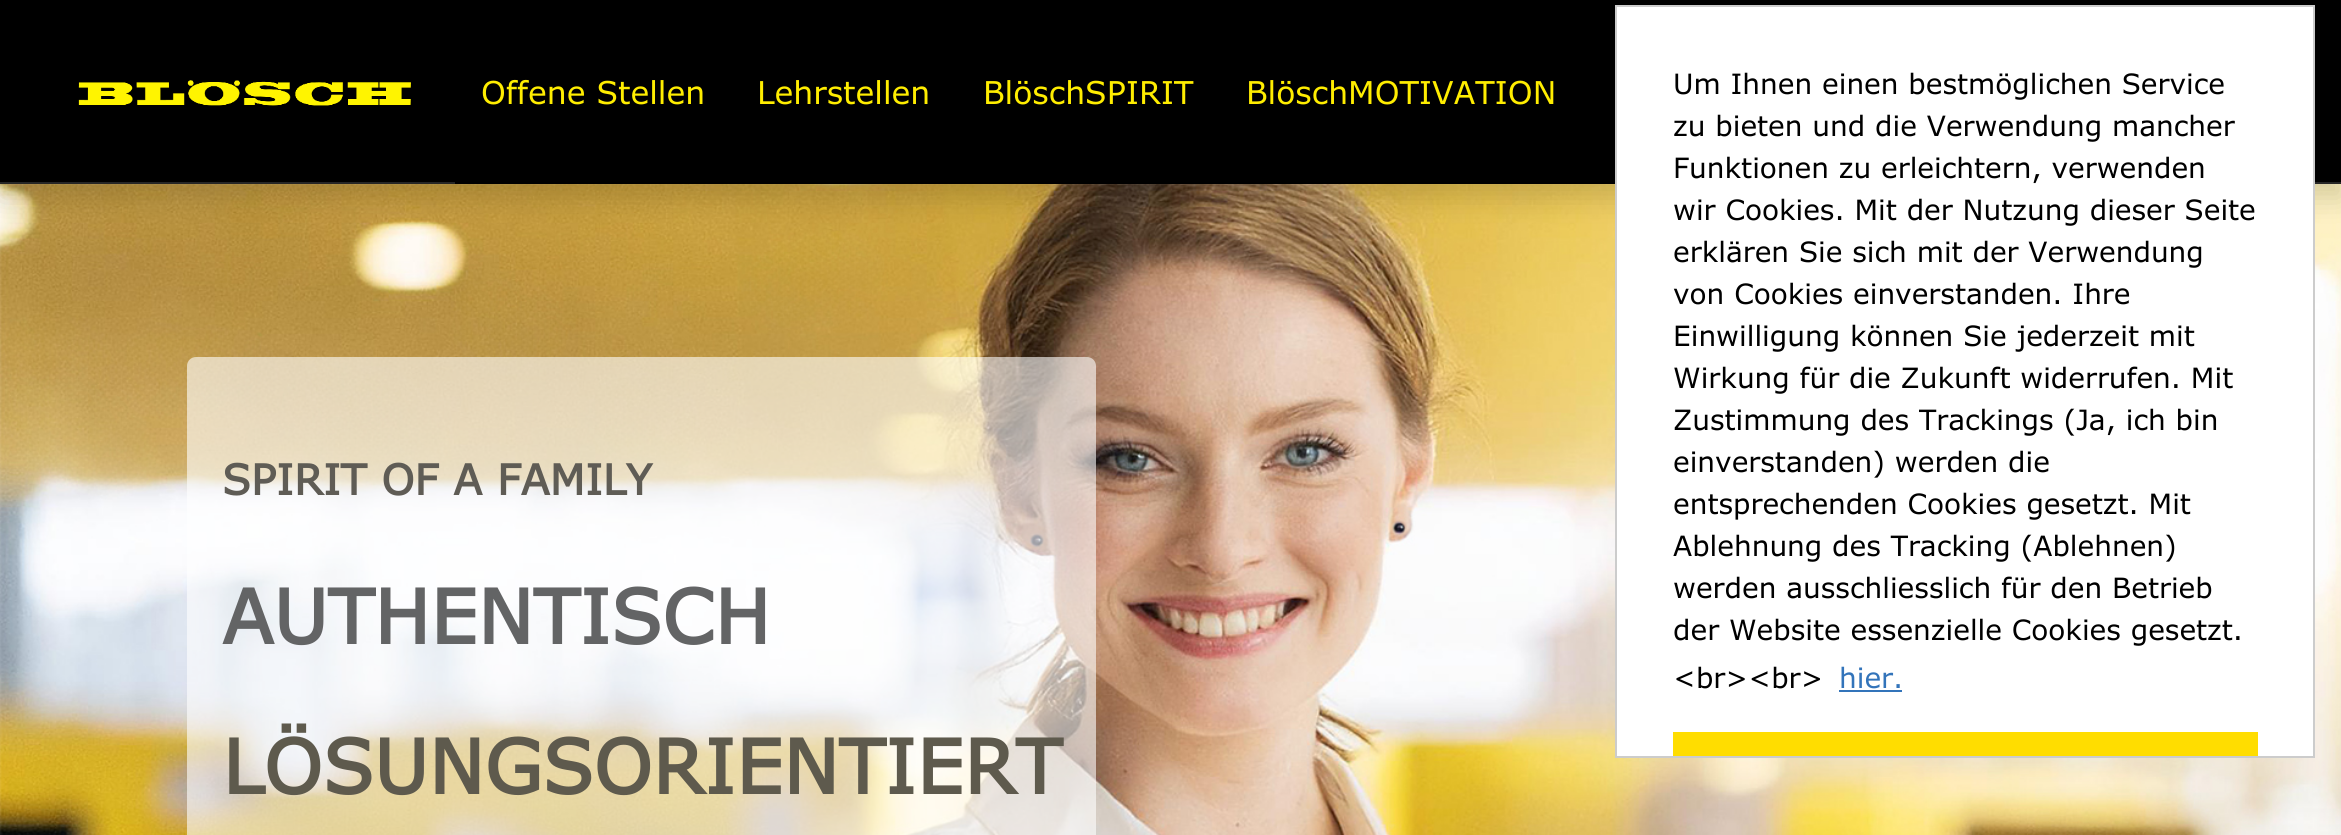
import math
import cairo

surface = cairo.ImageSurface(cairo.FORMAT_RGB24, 2341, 835)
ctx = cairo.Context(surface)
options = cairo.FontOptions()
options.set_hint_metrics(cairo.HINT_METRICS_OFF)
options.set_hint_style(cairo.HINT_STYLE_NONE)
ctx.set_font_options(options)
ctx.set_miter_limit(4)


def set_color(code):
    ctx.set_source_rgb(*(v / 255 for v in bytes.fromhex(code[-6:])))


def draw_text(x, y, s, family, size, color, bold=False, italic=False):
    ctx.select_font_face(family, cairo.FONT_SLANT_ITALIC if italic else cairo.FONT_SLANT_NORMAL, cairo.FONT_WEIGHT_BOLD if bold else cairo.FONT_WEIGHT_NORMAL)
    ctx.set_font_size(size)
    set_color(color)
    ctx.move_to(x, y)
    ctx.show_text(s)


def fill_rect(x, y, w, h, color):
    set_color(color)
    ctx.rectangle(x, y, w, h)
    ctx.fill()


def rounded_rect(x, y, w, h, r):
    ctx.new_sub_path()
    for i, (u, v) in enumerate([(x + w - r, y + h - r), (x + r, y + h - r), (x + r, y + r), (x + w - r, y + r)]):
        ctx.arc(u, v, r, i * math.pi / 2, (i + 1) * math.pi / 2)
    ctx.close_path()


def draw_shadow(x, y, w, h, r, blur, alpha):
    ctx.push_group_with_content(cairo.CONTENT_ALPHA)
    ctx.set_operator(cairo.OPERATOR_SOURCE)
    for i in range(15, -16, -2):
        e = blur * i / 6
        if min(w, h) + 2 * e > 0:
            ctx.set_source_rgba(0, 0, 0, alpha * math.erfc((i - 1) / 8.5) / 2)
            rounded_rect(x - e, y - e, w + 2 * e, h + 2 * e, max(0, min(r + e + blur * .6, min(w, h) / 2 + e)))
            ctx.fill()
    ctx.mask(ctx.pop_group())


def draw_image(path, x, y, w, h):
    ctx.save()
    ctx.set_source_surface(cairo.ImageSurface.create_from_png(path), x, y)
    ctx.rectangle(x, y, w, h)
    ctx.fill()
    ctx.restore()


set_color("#ffffff")
ctx.paint()
draw_image("assets/img2.png", 0, 184, 2341, 651)
set_color("#000000")
draw_shadow(0, 14, 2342, 184, 0, 14, 0.15)
fill_rect(0, 0, 2341, 182, "#000000")
fill_rect(0, 182, 2341, 2, "#262626")
draw_image("assets/img1.png", 78, 80, 333, 26)
fill_rect(455, 182, 1860, 2, "#000000")
draw_text(481, 104, "Offene Stellen", "Verdana", 31.5, "#ffed00")
draw_text(757, 104, "Lehrstellen", "Verdana", 31.5, "#ffed00")
draw_text(983, 104, "BlöschSPIRIT", "Verdana", 31.5, "#ffed00")
draw_text(1246, 104, "BlöschMOTIVATION", "Verdana", 31.5, "#ffed00")
ctx.set_source_rgba(1, 1, 1, 0.6)
rounded_rect(187, 357, 909, 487, 9)
ctx.fill()
draw_text(222, 495, "SPIRIT OF A FAMILY", "Verdana", 42, "#5f5c55", bold=True)
draw_text(222, 644, "AUTHENTISCH", "Verdana", 74.75, "#636465", bold=True)
draw_text(222, 794, "LÖSUNGSORIENTIERT", "Verdana", 74.75, "#5e5a4d", bold=True)
set_color("#ffffff")
ctx.rectangle(1616, 6, 698, 751)
ctx.fill_preserve()
set_color("#cccccc")
ctx.stroke()
draw_text(1673, 94, "Um Ihnen einen bestmöglichen Service", "Verdana", 28, "#000000")
draw_text(1673, 136, "zu bieten und die Verwendung mancher", "Verdana", 28, "#000000")
draw_text(1673, 178, "Funktionen zu erleichtern, verwenden", "Verdana", 28, "#000000")
draw_text(1673, 220, "wir Cookies. Mit der Nutzung dieser Seite", "Verdana", 28, "#000000")
draw_text(1673, 262, "erklären Sie sich mit der Verwendung", "Verdana", 28, "#000000")
draw_text(1673, 304, "von Cookies einverstanden. Ihre", "Verdana", 28, "#000000")
draw_text(1673, 346, "Einwilligung können Sie jederzeit mit", "Verdana", 28, "#000000")
draw_text(1673, 388, "Wirkung für die Zukunft widerrufen. Mit", "Verdana", 28, "#000000")
draw_text(1673, 430, "Zustimmung des Trackings (Ja, ich bin", "Verdana", 28, "#000000")
draw_text(1673, 472, "einverstanden) werden die", "Verdana", 28, "#000000")
draw_text(1673, 514, "entsprechenden Cookies gesetzt. Mit", "Verdana", 28, "#000000")
draw_text(1673, 556, "Ablehnung des Tracking (Ablehnen)", "Verdana", 28, "#000000")
draw_text(1673, 598, "werden ausschliesslich für den Betrieb", "Verdana", 28, "#000000")
draw_text(1673, 640, "der Website essenzielle Cookies gesetzt.", "Verdana", 28, "#000000")
draw_text(1673, 688, "<br><br>", "Verdana", 28, "#000000")
draw_text(1839, 688, "hier.", "Verdana", 28, "#3374ba")
fill_rect(1839, 690, 63, 2, "#3374ba")
fill_rect(1673, 732, 585, 24, "#ffdd00")
surface.write_to_png("output.png")
